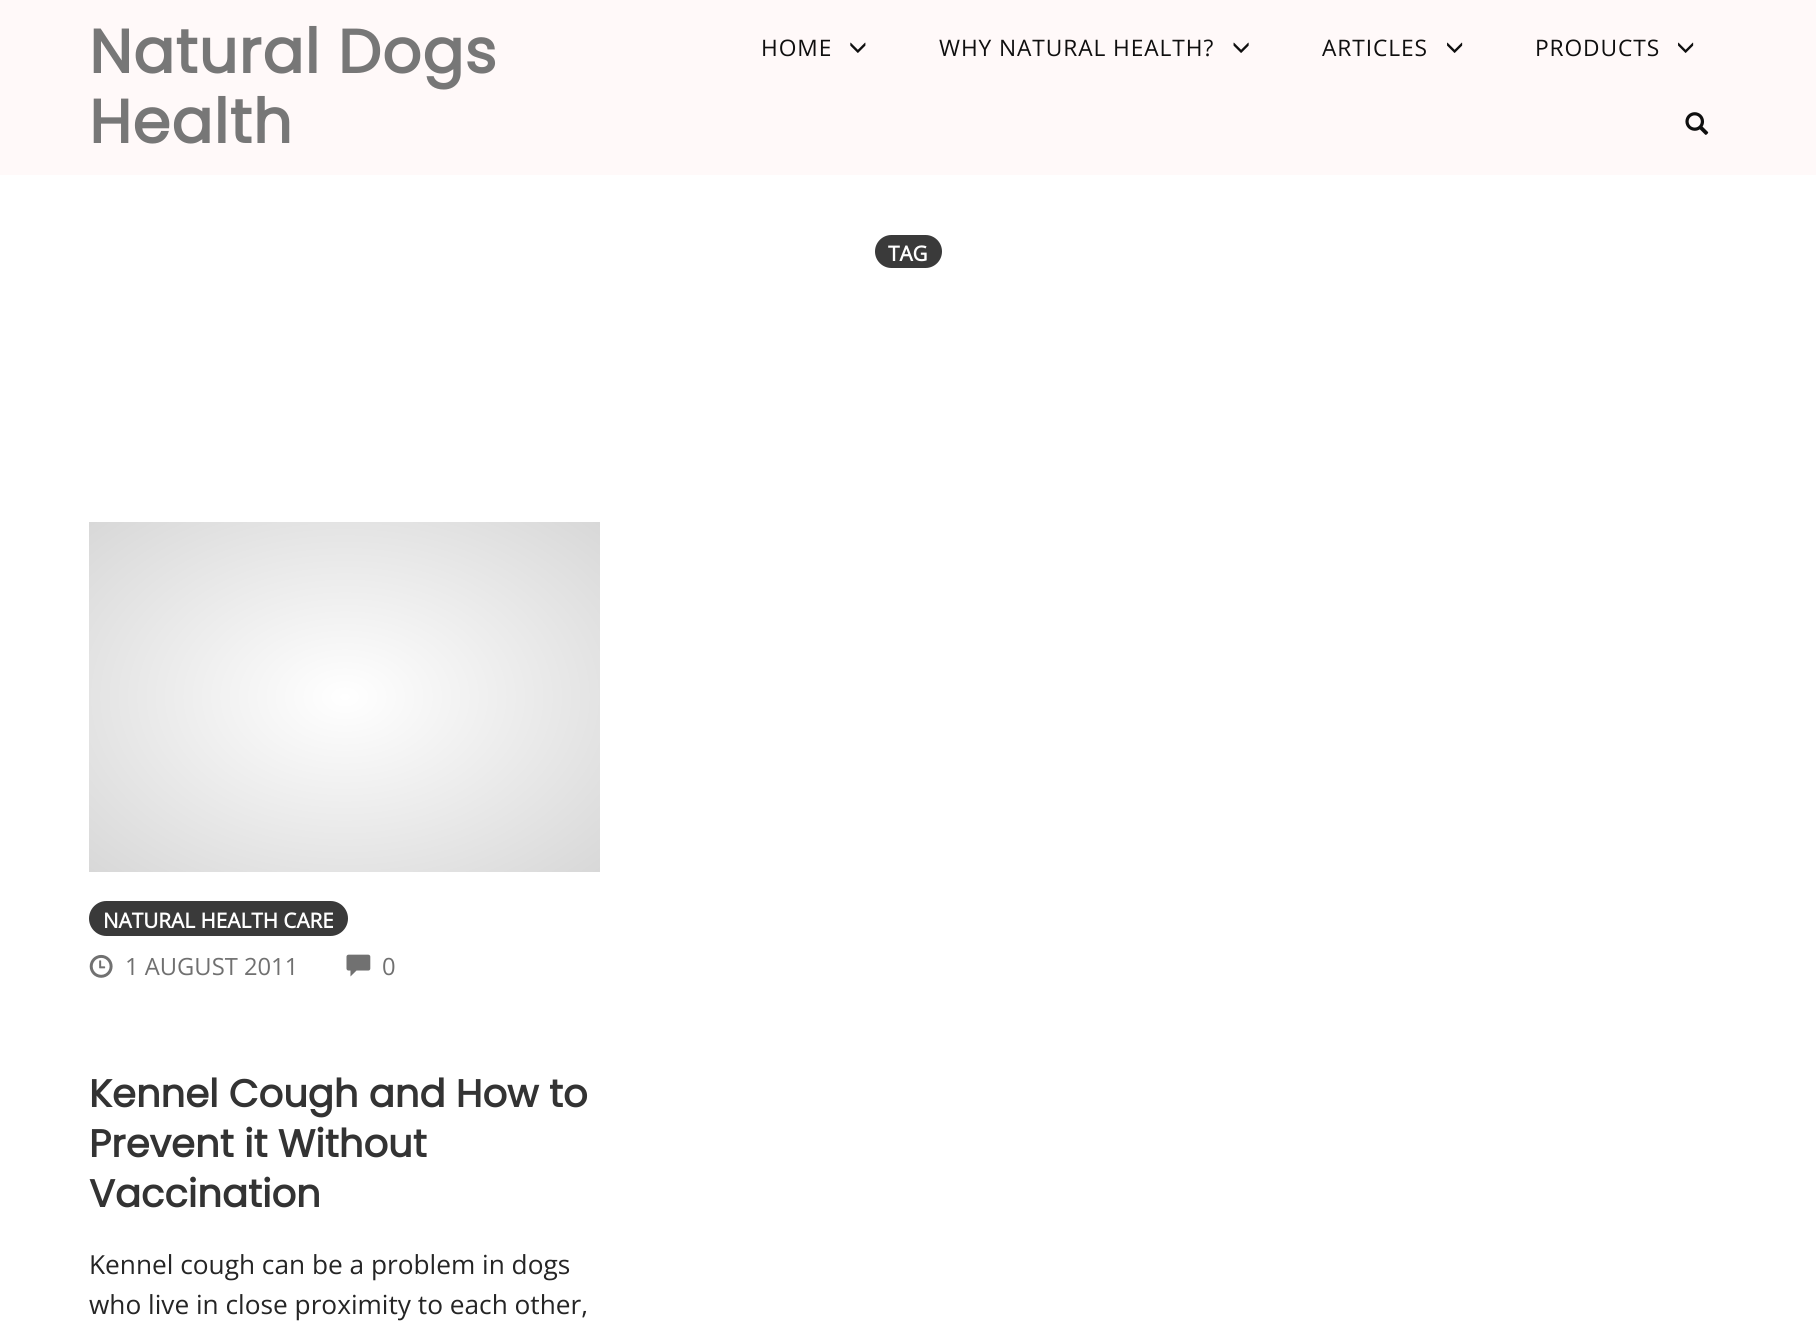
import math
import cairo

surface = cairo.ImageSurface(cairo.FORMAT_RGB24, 1816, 1331)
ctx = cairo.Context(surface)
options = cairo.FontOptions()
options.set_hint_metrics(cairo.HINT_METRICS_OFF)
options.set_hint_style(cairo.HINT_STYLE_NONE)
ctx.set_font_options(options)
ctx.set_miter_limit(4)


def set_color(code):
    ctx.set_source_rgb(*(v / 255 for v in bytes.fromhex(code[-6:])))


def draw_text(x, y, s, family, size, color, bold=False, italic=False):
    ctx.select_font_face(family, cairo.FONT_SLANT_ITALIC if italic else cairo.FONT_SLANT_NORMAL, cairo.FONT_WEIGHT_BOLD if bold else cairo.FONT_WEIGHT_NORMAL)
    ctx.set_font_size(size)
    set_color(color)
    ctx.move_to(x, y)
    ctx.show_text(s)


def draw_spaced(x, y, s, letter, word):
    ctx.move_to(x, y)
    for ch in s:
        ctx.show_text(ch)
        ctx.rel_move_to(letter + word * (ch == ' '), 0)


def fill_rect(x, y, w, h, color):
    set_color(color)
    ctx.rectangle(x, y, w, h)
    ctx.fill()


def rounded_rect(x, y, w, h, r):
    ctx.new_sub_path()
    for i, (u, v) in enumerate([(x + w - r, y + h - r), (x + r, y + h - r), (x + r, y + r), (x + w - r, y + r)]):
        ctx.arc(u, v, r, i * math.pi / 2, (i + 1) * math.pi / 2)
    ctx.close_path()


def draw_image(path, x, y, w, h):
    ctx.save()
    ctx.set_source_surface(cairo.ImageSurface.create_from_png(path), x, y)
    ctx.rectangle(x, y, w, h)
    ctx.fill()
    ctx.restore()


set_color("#ffffff")
ctx.paint()
fill_rect(0, 0, 1816, 175, "#fff9f9")
ctx.select_font_face("Poppins", cairo.FONT_SLANT_NORMAL, cairo.FONT_WEIGHT_BOLD)
ctx.set_font_size(61.25)
set_color("#777777")
draw_spaced(89, 73, "Natural Dogs", 0.9, 0)
draw_spaced(89, 143, "Health", 0.9, 0)
ctx.select_font_face("Open Sans")
ctx.set_font_size(22.75)
set_color("#0f0f0f")
draw_spaced(761, 56, "HOME", 0.9, 0)
draw_image("assets/img1.png", 850, 42, 16, 11)
draw_spaced(939, 56, "WHY NATURAL HEALTH?", 0.9, 0)
draw_image("assets/img2.png", 1233, 42, 16, 11)
draw_spaced(1322, 56, "ARTICLES", 0.9, 0)
draw_image("assets/img3.png", 1447, 42, 16, 11)
draw_spaced(1535, 56, "PRODUCTS", 0.9, 0)
draw_image("assets/img3.png", 1678, 42, 16, 11)
draw_image("assets/img4.png", 1685, 112, 24, 23)
set_color("#3a3a3a")
rounded_rect(875, 235, 67, 33, 16.5)
ctx.fill()
draw_text(888, 261, "TAG", "Open Sans", 20.75, "#ffffff", bold=True)
gradient = cairo.RadialGradient(0, 0, 0, 0, 0, 1)
gradient.set_matrix(cairo.Matrix(1 / 361, 0, 0, 1 / 247, -1 * 345 / 361, -1 * 697 / 247))
gradient.add_color_stop_rgba(0, 1, 1, 1, 1)
gradient.add_color_stop_rgba(1, 0.847, 0.847, 0.847, 1)
ctx.set_source(gradient)
ctx.rectangle(89, 522, 511, 350)
ctx.fill()
set_color("#3a3a3a")
rounded_rect(89, 901, 259, 35, 17.5)
ctx.fill()
draw_text(103, 928, "NATURAL HEALTH CARE", "Open Sans", 20.75, "#ffffff", bold=True)
draw_image("assets/img5.png", 89, 954, 24, 24)
draw_text(125, 975, "1 AUGUST 2011", "Open Sans", 23.75, "#707070")
draw_image("assets/img6.png", 346, 954, 25, 23)
draw_text(382, 975, "0", "Open Sans", 23.75, "#707070")
draw_text(89, 1107, "Kennel Cough and How to", "Poppins", 38.5, "#333333", bold=True)
draw_text(89, 1157, "Prevent it Without", "Poppins", 38.5, "#333333", bold=True)
draw_text(89, 1207, "Vaccination", "Poppins", 38.5, "#333333", bold=True)
draw_text(89, 1274, "Kennel cough can be a problem in dogs", "Open Sans", 26.25, "#252525")
draw_text(89, 1314, "who live in close proximity to each other,", "Open Sans", 26.25, "#252525")
surface.write_to_png("output.png")
